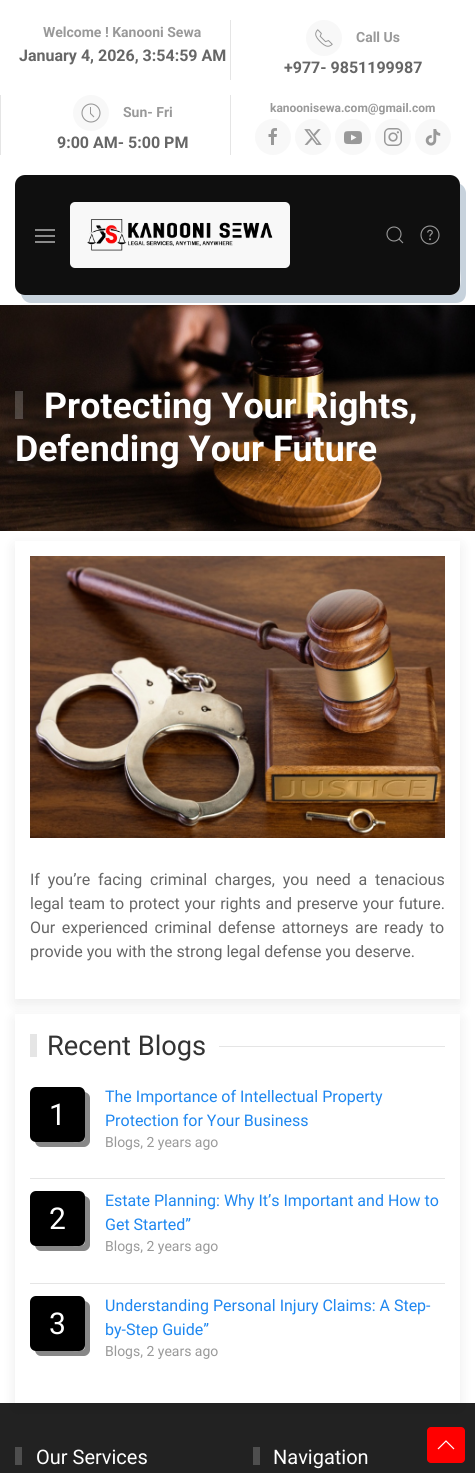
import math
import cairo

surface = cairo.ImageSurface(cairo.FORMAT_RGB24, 475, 1473)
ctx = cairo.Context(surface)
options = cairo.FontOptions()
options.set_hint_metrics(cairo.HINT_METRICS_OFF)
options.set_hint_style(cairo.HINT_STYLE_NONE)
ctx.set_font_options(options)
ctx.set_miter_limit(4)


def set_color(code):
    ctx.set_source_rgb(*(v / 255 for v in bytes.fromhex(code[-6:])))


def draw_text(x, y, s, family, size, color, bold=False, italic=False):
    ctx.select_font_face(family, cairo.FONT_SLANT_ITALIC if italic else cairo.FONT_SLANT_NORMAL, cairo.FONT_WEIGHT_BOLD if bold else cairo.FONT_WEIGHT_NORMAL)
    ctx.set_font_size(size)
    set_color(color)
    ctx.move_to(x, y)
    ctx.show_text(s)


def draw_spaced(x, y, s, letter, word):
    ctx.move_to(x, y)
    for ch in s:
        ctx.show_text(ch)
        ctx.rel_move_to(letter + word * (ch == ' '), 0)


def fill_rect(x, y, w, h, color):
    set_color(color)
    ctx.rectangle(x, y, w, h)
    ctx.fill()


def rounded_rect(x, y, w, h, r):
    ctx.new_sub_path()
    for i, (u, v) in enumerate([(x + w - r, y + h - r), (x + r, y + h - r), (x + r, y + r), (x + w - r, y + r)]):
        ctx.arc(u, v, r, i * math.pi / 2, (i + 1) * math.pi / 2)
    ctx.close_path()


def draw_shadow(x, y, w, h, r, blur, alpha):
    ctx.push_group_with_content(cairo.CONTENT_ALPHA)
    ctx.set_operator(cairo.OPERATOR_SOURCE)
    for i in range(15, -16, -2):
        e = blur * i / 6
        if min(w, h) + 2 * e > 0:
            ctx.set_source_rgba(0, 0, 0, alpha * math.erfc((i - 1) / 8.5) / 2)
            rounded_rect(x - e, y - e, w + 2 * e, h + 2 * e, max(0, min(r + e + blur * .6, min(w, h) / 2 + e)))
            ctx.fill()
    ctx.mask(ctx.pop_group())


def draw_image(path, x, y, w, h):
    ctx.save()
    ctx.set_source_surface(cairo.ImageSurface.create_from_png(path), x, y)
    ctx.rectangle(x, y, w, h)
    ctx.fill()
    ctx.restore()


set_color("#ffffff")
ctx.paint()
draw_text(43, 37, "Welcome ! Kanooni Sewa", "Roboto", 14, "#999999", bold=True)
draw_text(19, 61, "January 4, 2026, 3:54:59 AM", "Roboto", 16, "#666666", bold=True)
fill_rect(230, 20, 1, 60, "#e5e5e5")
set_color("#f8f8f8")
ctx.new_path()
ctx.arc(324, 38, 18, 0, 2 * math.pi)
ctx.fill()
draw_image("assets/img1.png", 315, 29, 18, 18)
draw_text(356, 42, "Call Us", "Roboto", 14, "#999999", bold=True)
draw_text(284, 73, "+977- 9851199987", "Roboto", 16, "#666666", bold=True)
fill_rect(0, 95, 1, 60, "#e5e5e5")
set_color("#f8f8f8")
ctx.new_path()
ctx.arc(91, 113, 18, 0, 2 * math.pi)
ctx.fill()
ctx.arc(91, 113, 9, 0, 2 * math.pi)
set_color("#999999")
ctx.set_line_width(1.1)
ctx.stroke()
fill_rect(90, 107, 1, 7, "#999999")
ctx.new_path()
ctx.move_to(94, 117)
ctx.line_to(90.5, 113.5)
ctx.stroke()
draw_text(123, 117, "Sun- Fri", "Roboto", 14, "#999999", bold=True)
draw_text(57, 148, "9:00 AM- 5:00 PM", "Roboto", 16, "#666666", bold=True)
fill_rect(230, 95, 1, 60, "#e5e5e5")
draw_text(270, 112, "kanoonisewa.com@gmail.com", "Roboto", 12, "#999999", bold=True)
set_color("#f8f8f8")
ctx.new_path()
ctx.arc(273, 137, 18, 0, 2 * math.pi)
ctx.fill()
draw_image("assets/img2.png", 268, 128, 9, 17)
ctx.arc(313, 137, 18, 0, 2 * math.pi)
ctx.fill()
draw_image("assets/img3.png", 304, 129, 18, 16)
ctx.arc(353, 137, 18, 0, 2 * math.pi)
ctx.fill()
draw_image("assets/img4.png", 344, 131, 18, 14)
ctx.arc(393, 137, 18, 0, 2 * math.pi)
ctx.fill()
draw_image("assets/img5.png", 384, 128, 18, 18)
ctx.arc(433, 137, 18, 0, 2 * math.pi)
ctx.fill()
draw_image("assets/img6.png", 425, 129, 16, 17)
set_color("#c7d2dc")
ctx.new_path()
ctx.move_to(21, 294)
ctx.curve_to(22, 299, 26, 303, 31, 303)
ctx.line_to(456, 303)
ctx.curve_to(462, 303, 466, 299, 466, 293)
ctx.line_to(466, 193)
ctx.curve_to(466, 189, 463, 185, 460, 184)
ctx.line_to(460, 268)
ctx.curve_to(460, 276, 464, 295, 450, 295)
ctx.line_to(25, 295)
ctx.close_path()
ctx.fill()
set_color("#0f0f0f")
rounded_rect(15, 175, 445, 120, 10)
ctx.fill()
fill_rect(35, 229, 20, 2, "#8a8a8a")
fill_rect(35, 235, 20, 2, "#8a8a8a")
fill_rect(35, 241, 20, 2, "#8a8a8a")
set_color("#f8f8f8")
rounded_rect(70, 202, 220, 66, 5)
ctx.fill()
draw_image("assets/img7.png", 87, 219, 186, 32)
ctx.arc(394, 234, 7, 0, 2 * math.pi)
set_color("#999999")
ctx.stroke()
ctx.new_path()
ctx.move_to(399, 239)
ctx.line_to(403, 243)
ctx.close_path()
ctx.stroke()
draw_image("assets/img8.png", 420, 225, 20, 20)
draw_image("assets/img9.png", 0, 305, 475, 226)
ctx.set_source_rgba(1, 1, 1, 0.2)
ctx.rectangle(15, 391, 8, 28)
ctx.fill()
draw_text(44, 418, "Protecting Your Rights,", "Roboto", 35.75, "#ffffff", bold=True)
draw_text(15, 461, "Defending Your Future", "Roboto", 35.75, "#ffffff", bold=True)
ctx.save()
ctx.set_fill_rule(cairo.FILL_RULE_EVEN_ODD)
ctx.new_path()
ctx.move_to(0, 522)
ctx.line_to(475, 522)
ctx.line_to(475, 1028)
ctx.line_to(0, 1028)
ctx.close_path()
ctx.move_to(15, 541)
ctx.line_to(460, 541)
ctx.line_to(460, 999)
ctx.line_to(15, 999)
ctx.close_path()
ctx.clip()
set_color("#000000")
draw_shadow(15, 546, 445, 458, 0, 7.5, 0.08)
ctx.restore()
draw_image("assets/img10.png", 30, 556, 415, 282)
ctx.select_font_face("Roboto")
ctx.set_font_size(16)
set_color("#666666")
draw_spaced(30, 885, "If you’re facing criminal charges, you need a tenacious", 0, 3.75)
draw_spaced(30, 909, "legal team to protect your rights and preserve your future.", 0, 0.75)
draw_spaced(30, 933, "Our experienced criminal defense attorneys are ready to", 0, 2.5)
draw_text(30, 957, "provide you with the strong legal defense you deserve.", "Roboto", 16, "#666666")
fill_rect(0, 1403, 475, 70, "#222222")
set_color("#000000")
draw_shadow(15, 1019, 445, 389, 0, 7.5, 0.08)
fill_rect(15, 1014, 445, 389, "#ffffff")
fill_rect(30, 1034, 7, 23, "#e5e5e5")
draw_text(47, 1055, "Recent Blogs", "Roboto", 27.25, "#333333")
fill_rect(219, 1046, 226, 1, "#e5e5e5")
set_color("#888888")
ctx.new_path()
ctx.move_to(35, 1142)
ctx.curve_to(36, 1145, 38, 1147, 41, 1147)
ctx.line_to(84, 1147)
ctx.curve_to(87, 1147, 90, 1144, 90, 1141)
ctx.line_to(90, 1098)
ctx.curve_to(90, 1095, 88, 1093, 85, 1092)
ctx.line_to(85, 1138)
ctx.curve_to(84, 1143, 76, 1142, 72, 1142)
ctx.close_path()
ctx.fill()
set_color("#000000")
rounded_rect(30, 1087, 55, 55, 6)
ctx.fill()
draw_text(49, 1125, "1", "Roboto", 30, "#ffffff")
draw_text(105, 1102, "The Importance of Intellectual Property", "Roboto", 16, "#1e87f0")
draw_text(105, 1126, "Protection for Your Business", "Roboto", 16, "#1e87f0")
draw_text(105, 1147, "Blogs, 2 years ago", "Roboto", 14, "#999999")
fill_rect(30, 1178, 415, 1, "#e5e5e5")
set_color("#888888")
ctx.new_path()
ctx.move_to(35, 1246)
ctx.curve_to(36, 1249, 38, 1251, 41, 1251)
ctx.line_to(84, 1251)
ctx.curve_to(87, 1251, 90, 1248, 90, 1245)
ctx.line_to(90, 1202)
ctx.curve_to(90, 1199, 88, 1197, 85, 1196)
ctx.line_to(85, 1242)
ctx.curve_to(84, 1247, 76, 1246, 72, 1246)
ctx.close_path()
ctx.fill()
set_color("#000000")
rounded_rect(30, 1191, 55, 55, 6)
ctx.fill()
draw_text(49, 1229, "2", "Roboto", 30, "#ffffff")
draw_text(105, 1206, "Estate Planning: Why It’s Important and How to", "Roboto", 16, "#1e87f0")
draw_text(105, 1230, "Get Started”", "Roboto", 16, "#1e87f0")
draw_text(105, 1251, "Blogs, 2 years ago", "Roboto", 14, "#999999")
fill_rect(30, 1283, 415, 1, "#e5e5e5")
set_color("#888888")
ctx.new_path()
ctx.move_to(35, 1351)
ctx.curve_to(36, 1354, 38, 1356, 41, 1356)
ctx.line_to(84, 1356)
ctx.curve_to(87, 1356, 90, 1353, 90, 1350)
ctx.line_to(90, 1307)
ctx.curve_to(90, 1304, 88, 1302, 85, 1301)
ctx.line_to(85, 1347)
ctx.curve_to(84, 1352, 76, 1351, 72, 1351)
ctx.close_path()
ctx.fill()
set_color("#000000")
rounded_rect(30, 1296, 55, 55, 6)
ctx.fill()
draw_text(49, 1334, "3", "Roboto", 30, "#ffffff")
draw_text(105, 1311, "Understanding Personal Injury Claims: A Step-", "Roboto", 16, "#1e87f0")
draw_text(105, 1335, "by-Step Guide”", "Roboto", 16, "#1e87f0")
draw_text(105, 1356, "Blogs, 2 years ago", "Roboto", 14, "#999999")
fill_rect(15, 1447, 7, 18, "#4e4e4e")
draw_text(36, 1464, "Our Services", "Roboto", 20, "#ffffff")
fill_rect(253, 1447, 7, 18, "#4e4e4e")
draw_text(273, 1464, "Navigation", "Roboto", 20, "#ffffff")
set_color("#ff0000")
rounded_rect(427, 1427, 38, 36, 4)
ctx.fill()
ctx.new_path()
ctx.move_to(438, 1449)
ctx.line_to(446, 1441)
ctx.line_to(454, 1449)
set_color("#ffffff")
ctx.set_line_width(1.2)
ctx.stroke()
surface.write_to_png("output.png")
